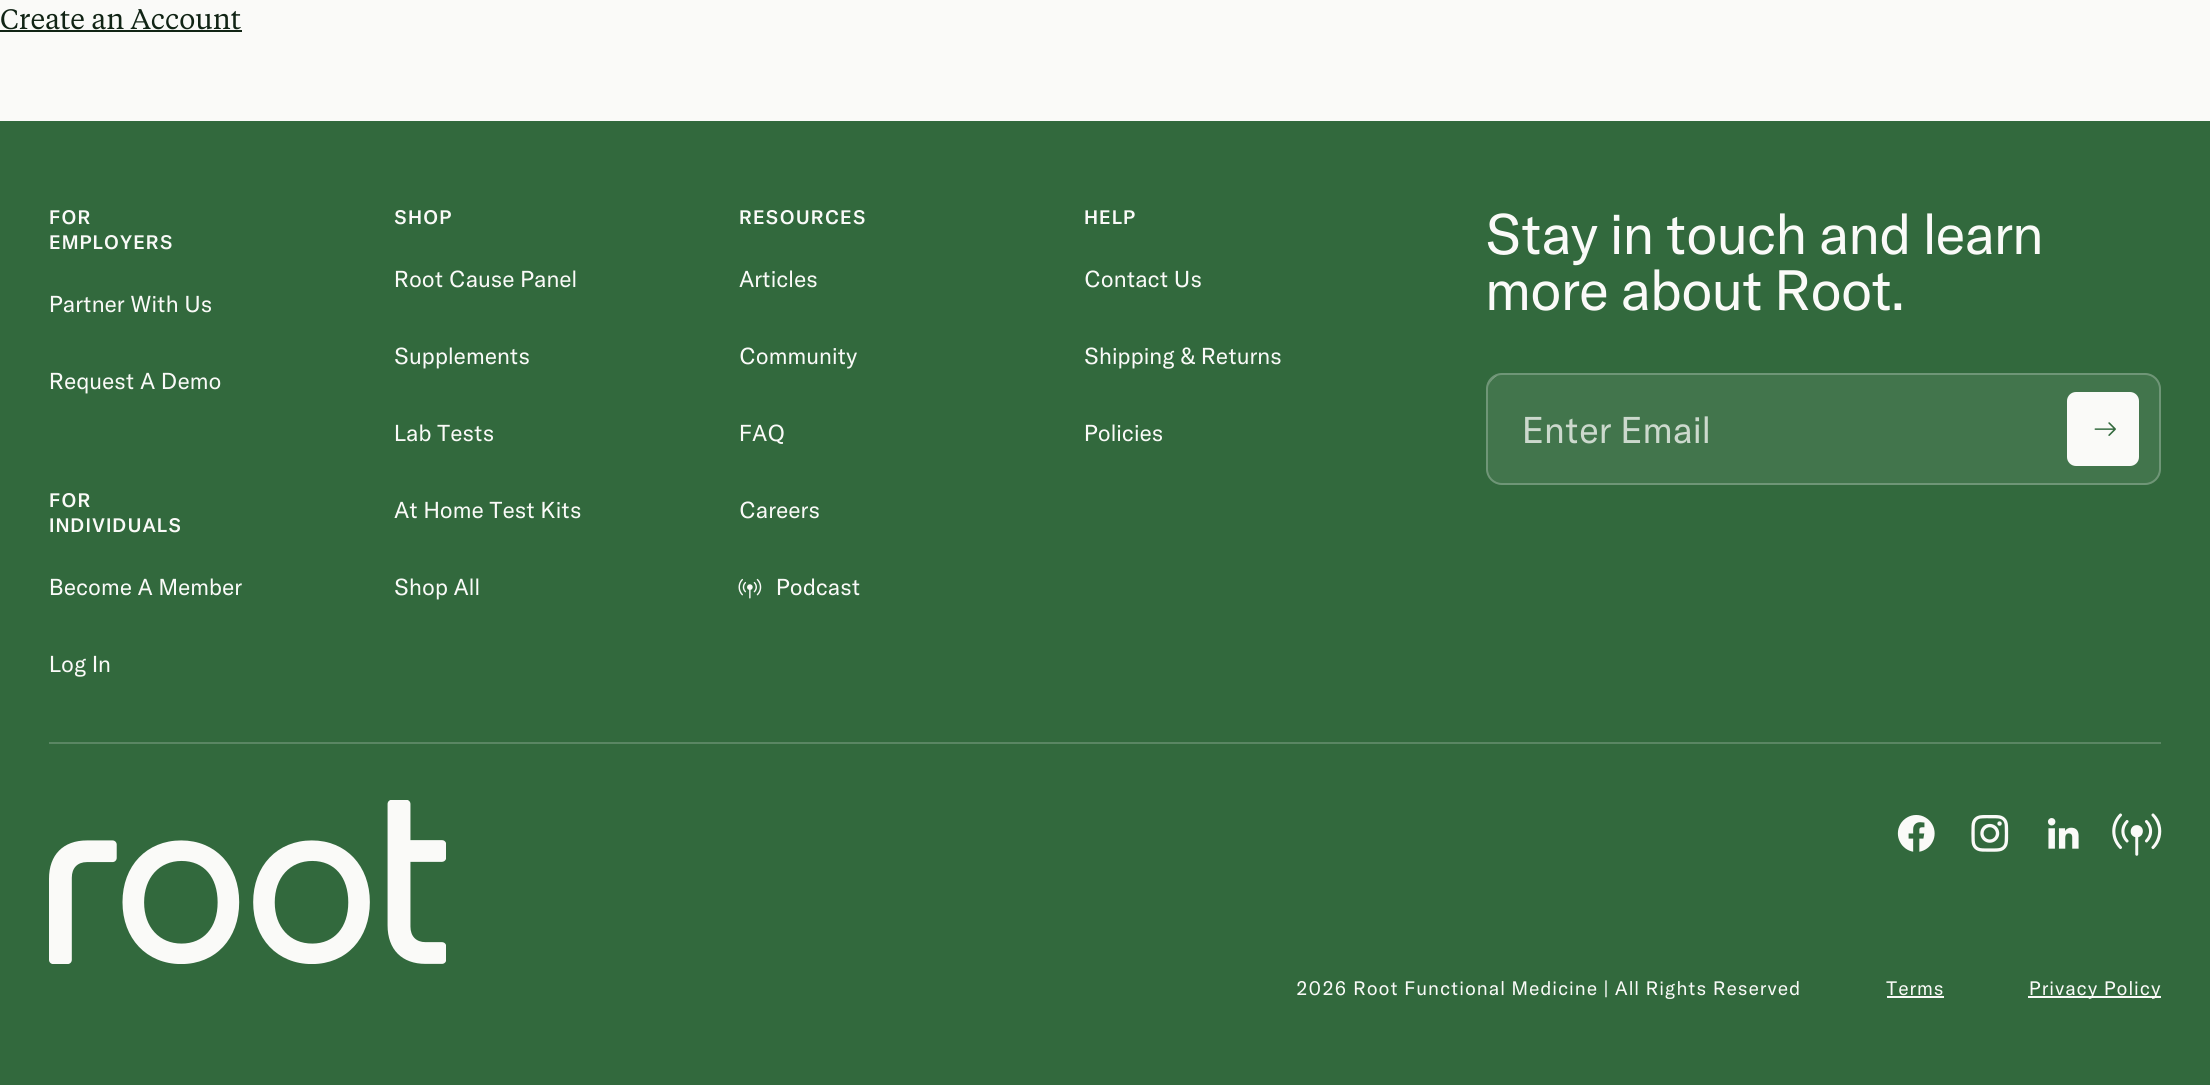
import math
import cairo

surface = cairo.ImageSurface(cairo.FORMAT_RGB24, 2210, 1085)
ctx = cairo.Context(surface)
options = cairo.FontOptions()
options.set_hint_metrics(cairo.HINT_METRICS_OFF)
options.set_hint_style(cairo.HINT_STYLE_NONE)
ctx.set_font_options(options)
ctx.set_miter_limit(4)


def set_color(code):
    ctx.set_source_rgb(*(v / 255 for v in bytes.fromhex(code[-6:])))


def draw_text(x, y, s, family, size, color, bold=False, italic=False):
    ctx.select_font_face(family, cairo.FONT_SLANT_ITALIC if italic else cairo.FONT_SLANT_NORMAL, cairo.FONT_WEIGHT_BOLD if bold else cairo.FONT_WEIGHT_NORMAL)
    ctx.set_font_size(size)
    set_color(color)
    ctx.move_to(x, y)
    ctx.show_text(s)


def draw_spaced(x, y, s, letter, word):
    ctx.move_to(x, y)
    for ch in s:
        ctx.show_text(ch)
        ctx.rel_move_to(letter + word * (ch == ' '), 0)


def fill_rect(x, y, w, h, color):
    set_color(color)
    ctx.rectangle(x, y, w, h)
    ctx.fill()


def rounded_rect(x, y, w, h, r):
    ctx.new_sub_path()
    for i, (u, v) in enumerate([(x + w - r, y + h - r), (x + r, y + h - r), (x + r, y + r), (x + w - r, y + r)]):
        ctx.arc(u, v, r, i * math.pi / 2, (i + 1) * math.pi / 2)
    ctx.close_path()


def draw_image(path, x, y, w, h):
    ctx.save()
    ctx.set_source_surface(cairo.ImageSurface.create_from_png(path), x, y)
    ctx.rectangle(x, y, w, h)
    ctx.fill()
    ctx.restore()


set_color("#fafaf8")
ctx.paint()
draw_text(0, 29, "Create an Account", "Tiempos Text", 28, "#112415")
fill_rect(0, 30, 242, 2, "#112415")
fill_rect(0, 121, 2210, 964, "#32693d")
ctx.select_font_face("GT America Medium")
ctx.set_font_size(19.25)
set_color("#fafaf8")
draw_spaced(49, 224, "FOR", 0.95, 0)
draw_spaced(49, 249, "EMPLOYERS", 0.95, 0)
draw_text(49, 312, "Partner With Us", "GT America", 22.75, "#fafaf8")
draw_text(49, 389, "Request A Demo", "GT America", 22.75, "#fafaf8")
ctx.select_font_face("GT America Medium")
ctx.set_font_size(19.25)
draw_spaced(49, 507, "FOR", 0.95, 0)
draw_spaced(49, 532, "INDIVIDUALS", 0.95, 0)
draw_text(49, 595, "Become A Member", "GT America", 22.75, "#fafaf8")
draw_text(49, 672, "Log In", "GT America", 22.75, "#fafaf8")
ctx.select_font_face("GT America Medium")
ctx.set_font_size(19.25)
draw_spaced(394, 224, "SHOP", 0.95, 0)
draw_text(394, 287, "Root Cause Panel", "GT America", 22.75, "#fafaf8")
draw_text(394, 364, "Supplements", "GT America", 22.75, "#fafaf8")
draw_text(394, 441, "Lab Tests", "GT America", 22.75, "#fafaf8")
draw_text(394, 518, "At Home Test Kits", "GT America", 22.75, "#fafaf8")
draw_text(394, 595, "Shop All", "GT America", 22.75, "#fafaf8")
ctx.select_font_face("GT America Medium")
ctx.set_font_size(19.25)
draw_spaced(739, 224, "RESOURCES", 0.95, 0)
draw_text(739, 287, "Articles", "GT America", 22.75, "#fafaf8")
draw_text(739, 364, "Community", "GT America", 22.75, "#fafaf8")
draw_text(739, 441, "FAQ", "GT America", 22.75, "#fafaf8")
draw_text(739, 518, "Careers", "GT America", 22.75, "#fafaf8")
draw_image("assets/img1.png", 738, 578, 24, 21)
draw_text(776, 595, "Podcast", "GT America", 22.75, "#fafaf8")
ctx.select_font_face("GT America Medium")
ctx.set_font_size(19.25)
draw_spaced(1084, 224, "HELP", 0.95, 0)
draw_text(1084, 287, "Contact Us", "GT America", 22.75, "#fafaf8")
draw_text(1084, 364, "Shipping & Returns", "GT America", 22.75, "#fafaf8")
draw_text(1084, 441, "Policies", "GT America", 22.75, "#fafaf8")
ctx.set_font_size(56)
draw_spaced(1485, 254, "Stay in touch and learn", -1.1, 0)
draw_spaced(1485, 310, "more about Root.", -1.1, 0)
set_color("#42754c")
rounded_rect(1486, 373, 675, 112, 16)
ctx.fill()
set_color("#8caa91")
ctx.new_path()
ctx.move_to(1497.5, 375.5)
ctx.curve_to(1493, 377, 1490, 381, 1488.5, 385.5)
ctx.curve_to(1490.5, 381, 1493.5, 378, 1497.5, 375.5)
ctx.close_path()
ctx.fill()
rounded_rect(1487, 374, 673, 110, 15)
ctx.set_source_rgba(0.98, 0.98, 0.973, 0.25)
ctx.stroke()
draw_text(1522, 443, "Enter Email", "GT America", 36.75, "#ccd9cd")
set_color("#fafaf8")
rounded_rect(2067, 392, 72, 74, 9)
ctx.fill()
draw_image("assets/img2.png", 2094, 422, 22, 14)
fill_rect(49, 742, 2112, 2, "#5a8663")
draw_image("assets/img3.png", 49, 800, 397, 164)
draw_image("assets/img4.png", 1897, 815, 38, 37)
draw_image("assets/img5.png", 1971, 815, 38, 37)
draw_image("assets/img6.png", 2047, 818, 32, 31)
draw_image("assets/img7.png", 2112, 813, 50, 43)
ctx.set_font_size(19.25)
set_color("#fafaf8")
draw_spaced(1296, 995, "2026 Root Functional Medicine | All Rights Reserved", 0.95, 0)
draw_spaced(1886, 995, "Terms", 0.95, 0)
fill_rect(1887, 996, 57, 2, "#fafaf8")
fill_rect(2028, 996, 133, 2, "#fafaf8")
draw_spaced(2029, 995, "Privacy Policy", 0.95, 0)
surface.write_to_png("output.png")
